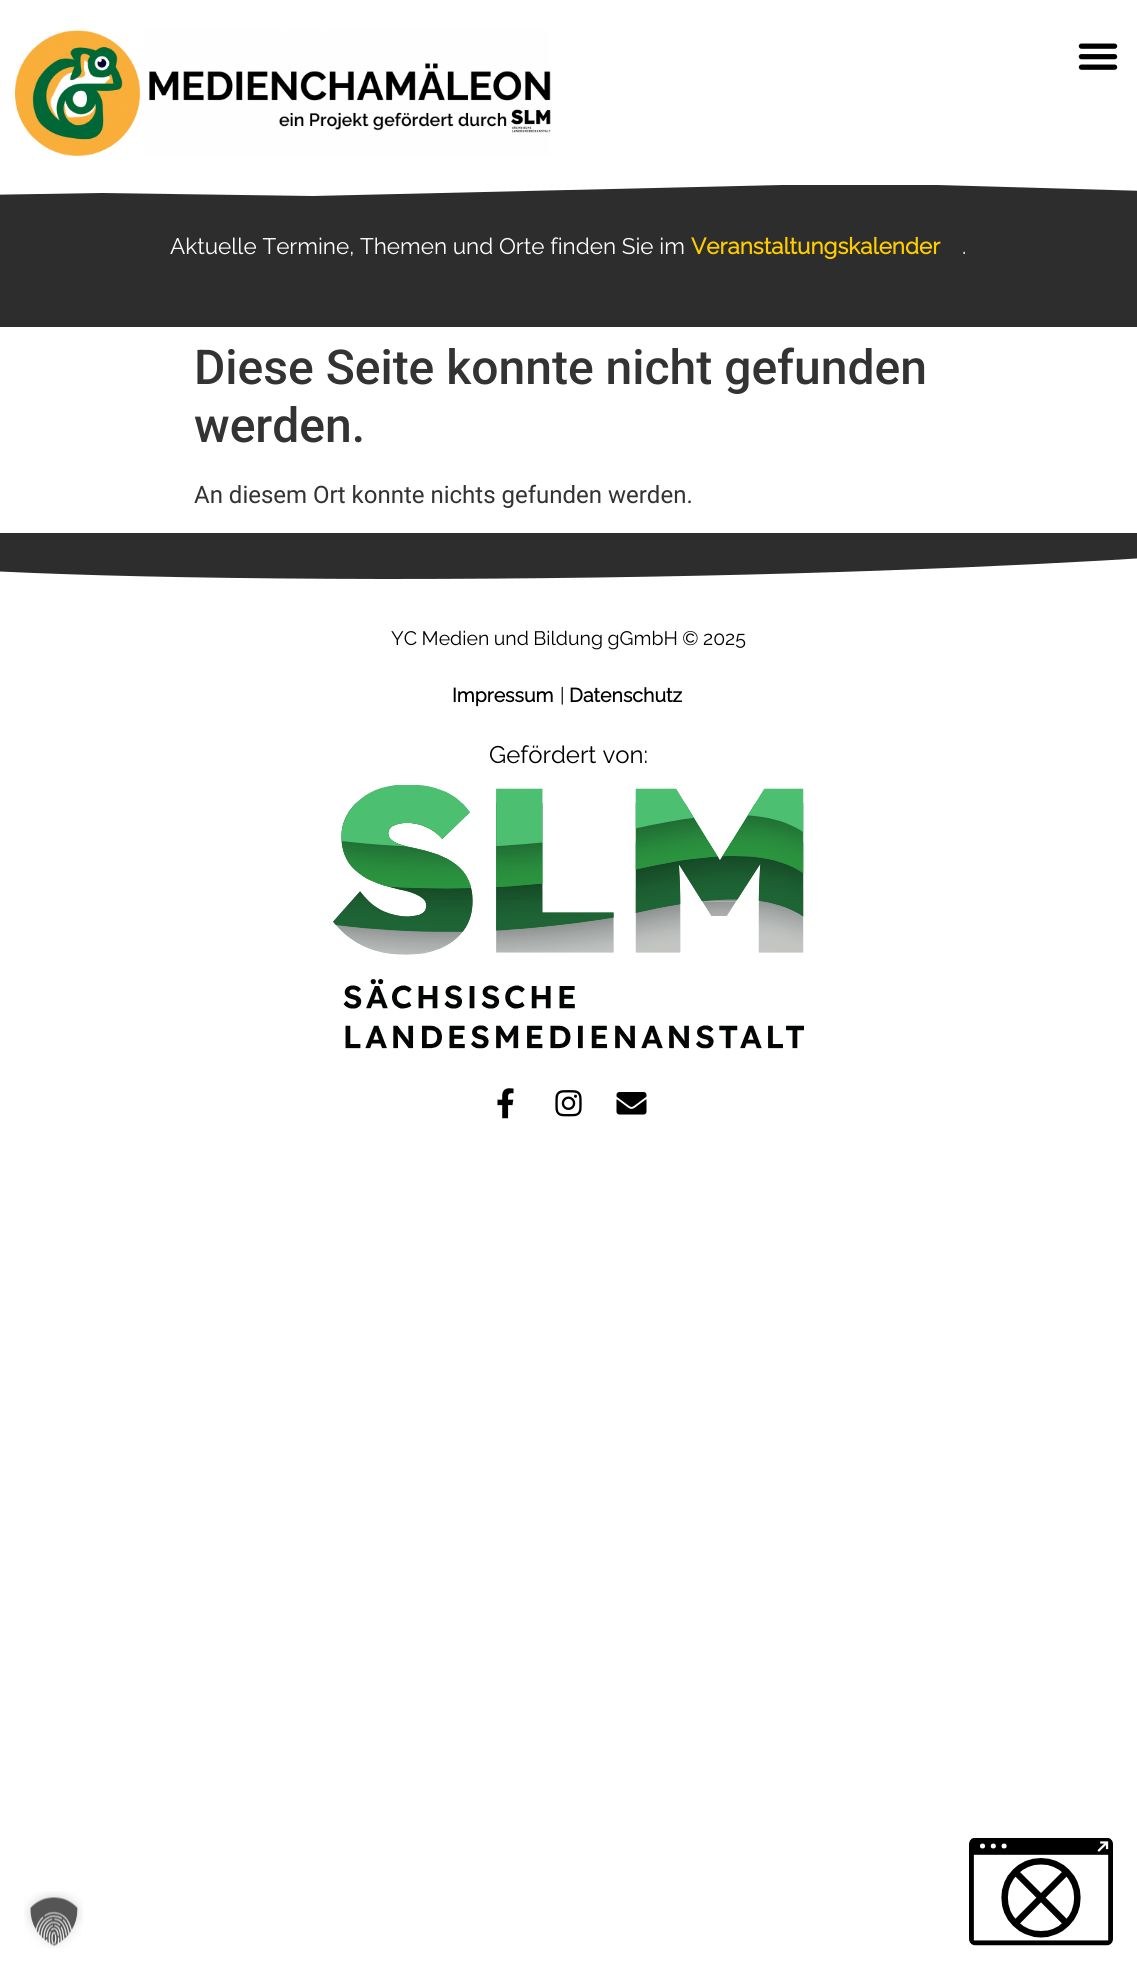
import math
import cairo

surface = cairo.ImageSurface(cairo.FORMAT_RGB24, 1137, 1975)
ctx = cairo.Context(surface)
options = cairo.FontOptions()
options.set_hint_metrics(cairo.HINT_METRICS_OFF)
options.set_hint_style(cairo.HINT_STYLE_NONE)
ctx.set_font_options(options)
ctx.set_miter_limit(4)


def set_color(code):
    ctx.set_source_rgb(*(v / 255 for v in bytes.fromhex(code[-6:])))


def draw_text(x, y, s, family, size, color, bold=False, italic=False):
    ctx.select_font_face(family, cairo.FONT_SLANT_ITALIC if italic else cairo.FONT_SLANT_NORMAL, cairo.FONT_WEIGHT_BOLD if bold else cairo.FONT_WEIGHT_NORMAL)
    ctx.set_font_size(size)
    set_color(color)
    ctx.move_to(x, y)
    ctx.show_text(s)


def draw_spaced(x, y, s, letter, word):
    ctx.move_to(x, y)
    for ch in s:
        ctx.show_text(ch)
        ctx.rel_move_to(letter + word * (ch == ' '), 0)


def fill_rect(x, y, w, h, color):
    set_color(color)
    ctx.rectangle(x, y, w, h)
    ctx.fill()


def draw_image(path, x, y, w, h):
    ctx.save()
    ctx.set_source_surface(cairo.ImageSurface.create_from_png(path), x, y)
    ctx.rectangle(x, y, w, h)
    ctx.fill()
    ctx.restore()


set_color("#ffffff")
ctx.paint()
draw_image("assets/img1.png", 15, 30, 536, 126)
draw_image("assets/img2.png", 1078, 43, 40, 27)
ctx.save()
ctx.rectangle(0, 185, 1137, 18)
ctx.clip()
set_color("#2d2d2d")
ctx.new_path()
ctx.move_to(100, 193)
ctx.line_to(313, 196)
ctx.line_to(866, 183)
ctx.line_to(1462, 200)
ctx.line_to(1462, 201)
ctx.line_to(-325, 201)
ctx.line_to(-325, 200)
ctx.fill()
ctx.restore()
fill_rect(0, 201, 1137, 126, "#2d2d2d")
draw_text(170, 254, "Aktuelle Termine, Themen und Orte finden Sie im", "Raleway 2", 22.5, "#ffffff")
draw_text(691, 254, "Veranstaltungskalender", "Raleway", 22.5, "#ffcc00", bold=True)
draw_text(962, 254, ".", "Raleway 2", 22.5, "#ffffff")
draw_text(194, 384, "Diese Seite konnte nicht gefunden", "Roboto Medium", 48, "#333333")
draw_text(194, 442, "werden.", "Roboto Medium", 48, "#333333")
draw_text(194, 503, "An diesem Ort konnte nichts gefunden werden.", "Roboto", 24, "#333333")
ctx.save()
ctx.rectangle(0, 533, 1137, 46)
ctx.clip()
set_color("#2d2d2d")
ctx.new_path()
ctx.move_to(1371, 532)
ctx.line_to(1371, 536)
ctx.curve_to(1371, 544, 986, 579, 384, 579)
ctx.curve_to(-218, 578, -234, 544, -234, 536)
ctx.line_to(-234, 532)
ctx.close_path()
ctx.fill()
ctx.restore()
ctx.select_font_face("Raleway")
ctx.set_font_size(19.5)
set_color("#000000")
draw_spaced(391, 645, "YC Medien und Bildung gGmbH © 2025", 0, -0.5)
draw_text(452, 702, "Impressum", "Raleway", 19.5, "#000000", bold=True)
draw_text(560, 702, "|", "Raleway", 19.5, "#000000")
draw_text(569, 702, "Datenschutz", "Raleway", 19.5, "#000000", bold=True)
draw_text(489, 763, "Gefördert von:", "Raleway", 24, "#000000")
draw_image("assets/img3.png", 333, 785, 471, 264)
draw_image("assets/img4.png", 497, 1088, 17, 31)
draw_image("assets/img5.png", 555, 1090, 27, 27)
draw_image("assets/img6.png", 616, 1092, 31, 23)
draw_image("assets/img7.png", 24, 1891, 59, 57)
draw_image("assets/img8.png", 969, 1838, 144, 108)
surface.write_to_png("output.png")
